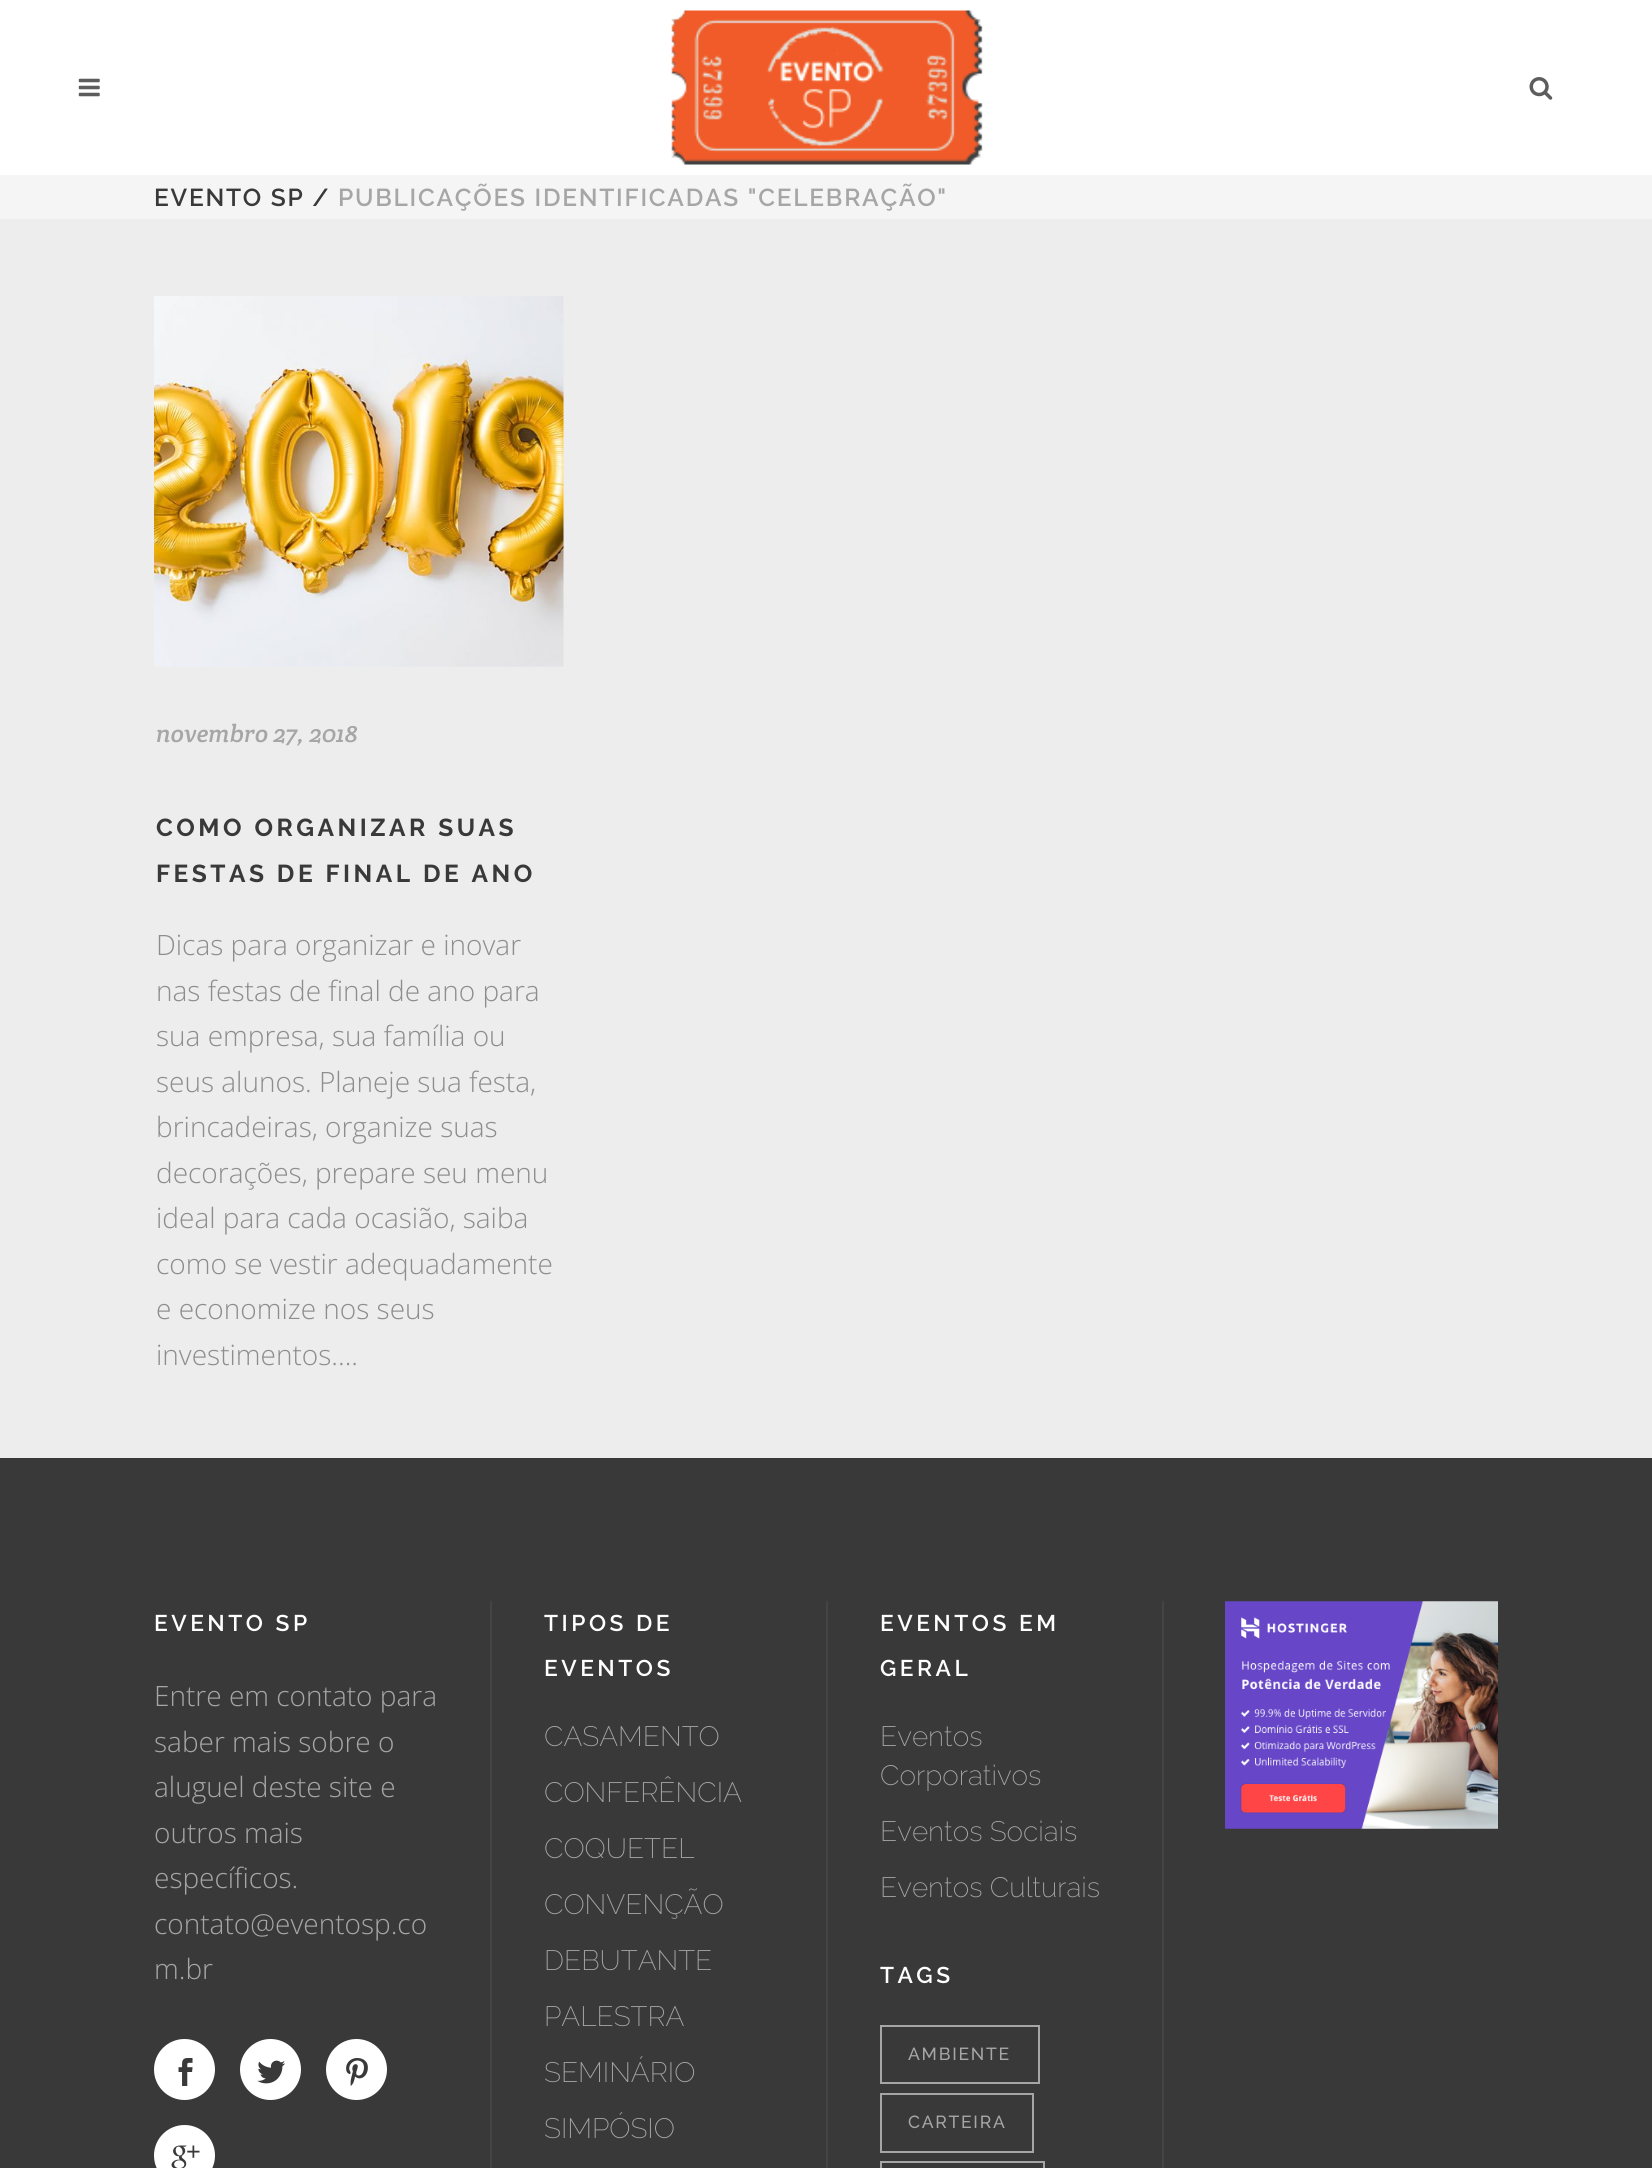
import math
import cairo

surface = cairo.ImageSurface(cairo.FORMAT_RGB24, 1652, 2168)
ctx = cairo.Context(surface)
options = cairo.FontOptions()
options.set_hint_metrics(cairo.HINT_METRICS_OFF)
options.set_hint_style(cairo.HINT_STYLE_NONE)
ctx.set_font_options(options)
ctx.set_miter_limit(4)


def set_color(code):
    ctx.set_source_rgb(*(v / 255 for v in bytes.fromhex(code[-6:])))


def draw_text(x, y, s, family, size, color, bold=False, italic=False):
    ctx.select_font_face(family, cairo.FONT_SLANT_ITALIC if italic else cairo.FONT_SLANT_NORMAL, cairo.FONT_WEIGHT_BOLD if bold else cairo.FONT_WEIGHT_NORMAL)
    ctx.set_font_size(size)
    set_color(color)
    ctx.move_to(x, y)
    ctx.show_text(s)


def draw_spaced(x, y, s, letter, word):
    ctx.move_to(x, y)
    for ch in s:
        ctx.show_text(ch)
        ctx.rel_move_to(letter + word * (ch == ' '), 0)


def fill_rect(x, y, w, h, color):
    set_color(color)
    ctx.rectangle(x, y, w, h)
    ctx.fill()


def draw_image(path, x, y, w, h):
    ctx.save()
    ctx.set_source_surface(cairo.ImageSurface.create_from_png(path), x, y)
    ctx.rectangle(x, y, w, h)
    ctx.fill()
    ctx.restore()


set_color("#ededed")
ctx.paint()
fill_rect(0, 0, 1652, 175, "#ffffff")
draw_image("assets/img1.png", 78, 78, 22, 19)
draw_image("assets/img2.png", 671, 10, 312, 155)
draw_image("assets/img3.png", 1529, 77, 24, 23)
fill_rect(0, 175, 1652, 44, "#f5f5f5")
ctx.select_font_face("Raleway SemiBold")
ctx.set_font_size(24.5)
set_color("#393939")
draw_spaced(154, 206, "EVENTO SP /", 1.75, 0)
set_color("#a7a6a6")
draw_spaced(338, 206, "PUBLICAÇÕES IDENTIFICADAS \"CELEBRAÇÃO\"", 1.75, 0)
draw_image("assets/img4.png", 154, 296, 410, 371)
draw_text(156, 742, "novembro 27, 2018", "Crete Round", 24.5, "#a7a6a6", italic=True)
ctx.select_font_face("Raleway", cairo.FONT_SLANT_NORMAL, cairo.FONT_WEIGHT_BOLD)
set_color("#393939")
draw_spaced(156, 836, "COMO ORGANIZAR SUAS", 3.5, 0)
draw_spaced(156, 882, "FESTAS DE FINAL DE ANO", 3.5, 0)
draw_text(156, 955, "Dicas para organizar e inovar", "Open Sans Light", 28, "#8d8d8d")
draw_text(156, 1001, "nas festas de final de ano para", "Open Sans Light", 28, "#8d8d8d")
draw_text(156, 1046, "sua empresa, sua família ou", "Open Sans Light", 28, "#8d8d8d")
draw_text(156, 1092, "seus alunos. Planeje sua festa,", "Open Sans Light", 28, "#8d8d8d")
draw_text(156, 1137, "brincadeiras, organize suas", "Open Sans Light", 28, "#8d8d8d")
draw_text(156, 1183, "decorações, prepare seu menu", "Open Sans Light", 28, "#8d8d8d")
draw_text(156, 1228, "ideal para cada ocasião, saiba", "Open Sans Light", 28, "#8d8d8d")
draw_text(156, 1274, "como se vestir adequadamente", "Open Sans Light", 28, "#8d8d8d")
draw_text(156, 1319, "e economize nos seus", "Open Sans Light", 28, "#8d8d8d")
draw_text(156, 1365, "investimentos....", "Open Sans Light", 28, "#8d8d8d")
fill_rect(0, 1458, 1652, 710, "#393939")
ctx.select_font_face("Raleway SemiBold")
ctx.set_font_size(22.75)
set_color("#ffffff")
draw_spaced(154, 1631, "EVENTO SP", 3.5, 0)
draw_text(154, 1706, "Entre em contato para", "Open Sans Light", 28, "#a7a6a6")
draw_text(154, 1752, "saber mais sobre o", "Open Sans Light", 28, "#a7a6a6")
draw_text(154, 1797, "aluguel deste site e", "Open Sans Light", 28, "#a7a6a6")
draw_text(154, 1843, "outros mais", "Open Sans Light", 28, "#a7a6a6")
draw_text(154, 1888, "específicos.", "Open Sans Light", 28, "#a7a6a6")
draw_text(154, 1934, "contato@eventosp.co", "Open Sans Light", 28, "#a7a6a6")
draw_text(154, 1979, "m.br", "Open Sans Light", 28, "#a7a6a6")
set_color("#ffffff")
ctx.new_path()
ctx.arc(184.5, 2069.5, 29.5, 0, 2 * math.pi)
ctx.fill_preserve()
ctx.stroke()
draw_image("assets/img5.png", 178, 2058, 15, 28)
ctx.arc(270.5, 2069.5, 29.5, 0, 2 * math.pi)
ctx.fill_preserve()
ctx.stroke()
draw_image("assets/img6.png", 257, 2060, 29, 24)
ctx.arc(356.5, 2069.5, 29.5, 0, 2 * math.pi)
ctx.fill_preserve()
ctx.stroke()
draw_image("assets/img7.png", 346, 2058, 22, 28)
ctx.arc(184.5, 2155.5, 29.5, 0, 2 * math.pi)
ctx.fill_preserve()
ctx.stroke()
draw_image("assets/img8.png", 171, 2145, 29, 23)
fill_rect(490, 1601, 2, 567, "#444444")
ctx.select_font_face("Raleway SemiBold")
ctx.set_font_size(22.75)
set_color("#ffffff")
draw_spaced(544, 1631, "TIPOS DE", 3.5, 0)
draw_spaced(544, 1676, "EVENTOS", 3.5, 0)
draw_text(544, 1746, "CASAMENTO", "Raleway ExtraLight", 28, "#a7a6a6")
draw_text(544, 1802, "CONFERÊNCIA", "Raleway ExtraLight", 28, "#a7a6a6")
draw_text(544, 1858, "COQUETEL", "Raleway ExtraLight", 28, "#a7a6a6")
draw_text(544, 1914, "CONVENÇÃO", "Raleway ExtraLight", 28, "#a7a6a6")
draw_text(544, 1970, "DEBUTANTE", "Raleway ExtraLight", 28, "#a7a6a6")
draw_text(544, 2026, "PALESTRA", "Raleway ExtraLight", 28, "#a7a6a6")
draw_text(544, 2082, "SEMINÁRIO", "Raleway ExtraLight", 28, "#a7a6a6")
draw_text(544, 2138, "SIMPÓSIO", "Raleway ExtraLight", 28, "#a7a6a6")
fill_rect(826, 1601, 2, 567, "#444444")
ctx.select_font_face("Raleway SemiBold")
ctx.set_font_size(22.75)
set_color("#ffffff")
draw_spaced(880, 1631, "EVENTOS EM", 3.5, 0)
draw_spaced(880, 1676, "GERAL", 3.5, 0)
draw_text(880, 1746, "Eventos", "Raleway ExtraLight", 28, "#a7a6a6")
draw_text(880, 1785, "Corporativos", "Raleway ExtraLight", 28, "#a7a6a6")
draw_text(880, 1841, "Eventos Sociais", "Raleway ExtraLight", 28, "#a7a6a6")
draw_text(880, 1897, "Eventos Culturais", "Raleway ExtraLight", 28, "#a7a6a6")
ctx.select_font_face("Raleway SemiBold")
ctx.set_font_size(22.75)
set_color("#ffffff")
draw_spaced(880, 1983, "TAGS", 3.5, 0)
ctx.rectangle(881, 2026, 158, 57)
set_color("#a7a6a6")
ctx.stroke()
ctx.select_font_face("Raleway Medium")
ctx.set_font_size(17.5)
draw_spaced(908, 2060, "AMBIENTE", 1.75, 0)
ctx.rectangle(881, 2094, 152, 58)
ctx.stroke()
draw_spaced(908, 2128, "CARTEIRA", 1.75, 0)
ctx.rectangle(881, 2162, 163, 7)
ctx.stroke()
fill_rect(1162, 1601, 2, 567, "#444444")
draw_image("assets/img9.png", 1225, 1601, 273, 228)
surface.write_to_png("output.png")
